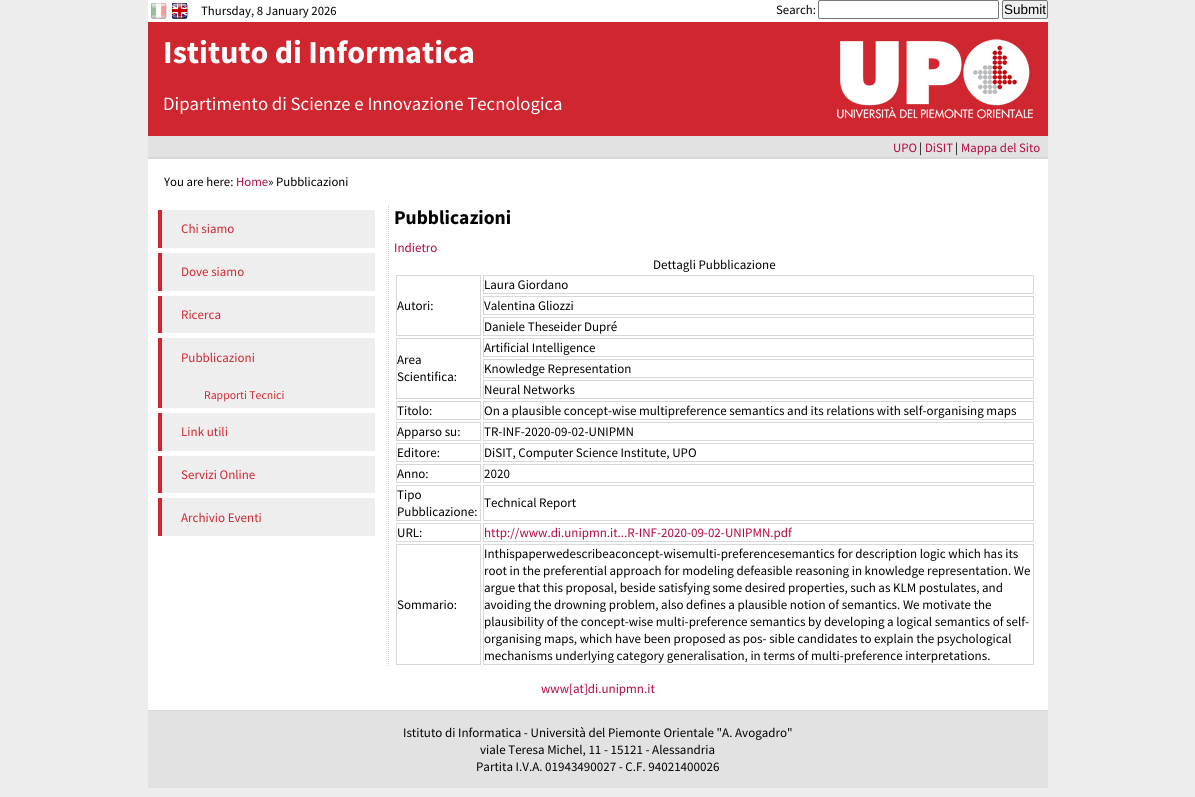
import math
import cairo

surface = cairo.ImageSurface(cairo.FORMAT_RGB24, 1195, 797)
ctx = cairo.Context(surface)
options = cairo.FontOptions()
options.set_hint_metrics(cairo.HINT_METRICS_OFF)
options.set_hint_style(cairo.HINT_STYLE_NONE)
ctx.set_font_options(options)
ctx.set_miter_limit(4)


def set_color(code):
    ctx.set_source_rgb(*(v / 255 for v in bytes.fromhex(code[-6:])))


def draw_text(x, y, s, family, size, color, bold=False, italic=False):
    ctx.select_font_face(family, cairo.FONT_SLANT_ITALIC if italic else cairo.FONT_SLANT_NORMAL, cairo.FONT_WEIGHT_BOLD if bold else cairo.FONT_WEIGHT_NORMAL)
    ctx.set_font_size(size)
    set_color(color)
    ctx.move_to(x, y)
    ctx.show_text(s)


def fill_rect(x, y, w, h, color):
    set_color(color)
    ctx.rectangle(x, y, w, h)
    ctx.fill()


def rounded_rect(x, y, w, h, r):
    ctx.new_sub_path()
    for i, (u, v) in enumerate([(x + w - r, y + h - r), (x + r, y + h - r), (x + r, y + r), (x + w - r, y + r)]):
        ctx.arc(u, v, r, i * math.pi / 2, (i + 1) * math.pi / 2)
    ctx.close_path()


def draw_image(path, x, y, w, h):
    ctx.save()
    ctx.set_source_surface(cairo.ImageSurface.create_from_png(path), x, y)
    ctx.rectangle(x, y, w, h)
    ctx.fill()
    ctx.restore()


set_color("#ededed")
ctx.paint()
fill_rect(148, 0, 900, 710, "#ffffff")
draw_image("assets/img1.png", 151, 3, 16, 16)
draw_image("assets/img2.png", 172, 3, 16, 16)
draw_text(201, 15, "Thursday, 8 January 2026", "Source Sans Pro", 12.75, "#000000")
draw_text(776, 14, "Search:", "Source Sans Pro", 12.75, "#000000")
rounded_rect(818.5, 0.5, 180, 18, 1.5)
set_color("#767676")
ctx.set_line_width(1)
ctx.stroke()
set_color("#efefef")
rounded_rect(1002.5, 0.5, 45, 18, 1.5)
ctx.fill_preserve()
set_color("#767676")
ctx.stroke()
draw_text(1004, 14, "Submit", "Liberation Sans", 13.5, "#000000")
fill_rect(148, 22, 900, 114, "#d02630")
draw_image("assets/img3.png", 837, 39, 196, 80)
draw_text(163, 63, "Istituto di Informatica", "Source Sans Pro", 32, "#ffffff", bold=True)
draw_text(163, 110, "Dipartimento di Scienze e Innovazione Tecnologica", "Source Sans Pro", 18.75, "#ffffff")
fill_rect(148, 136, 900, 21, "#e2e2e3")
fill_rect(148, 157, 900, 2, "#d8d8da")
draw_text(893, 152, "UPO", "Source Sans Pro", 12.75, "#b4073f")
draw_text(919, 152, "|", "Source Sans Pro", 12.75, "#000000")
draw_text(925, 152, "DiSIT", "Source Sans Pro", 12.75, "#b4073f")
draw_text(955, 152, "|", "Source Sans Pro", 12.75, "#000000")
draw_text(961, 152, "Mappa del Sito", "Source Sans Pro", 12.75, "#b4073f")
draw_text(164, 186, "You are here:", "Source Sans Pro", 12.75, "#000000")
draw_text(236, 186, "Home", "Source Sans Pro", 12.75, "#b4073f")
draw_text(268, 186, "» Pubblicazioni", "Source Sans Pro", 12.75, "#000000")
fill_rect(162, 210, 213, 38, "#eeeeee")
fill_rect(158, 210, 4, 38, "#d02630")
draw_text(181, 233, "Chi siamo", "Source Sans Pro", 13, "#d02630")
fill_rect(162, 253, 213, 38, "#eeeeee")
fill_rect(158, 253, 4, 38, "#d02630")
draw_text(181, 276, "Dove siamo", "Source Sans Pro", 13, "#d02630")
fill_rect(162, 296, 213, 37, "#eeeeee")
fill_rect(158, 296, 4, 37, "#d02630")
draw_text(181, 319, "Ricerca", "Source Sans Pro", 13, "#d02630")
fill_rect(162, 338, 213, 70, "#eeeeee")
fill_rect(158, 338, 4, 70, "#d02630")
draw_text(181, 362, "Pubblicazioni", "Source Sans Pro", 13, "#d02630")
draw_text(204, 399, "Rapporti Tecnici", "Source Sans Pro", 11.75, "#d02630")
fill_rect(162, 413, 213, 38, "#eeeeee")
fill_rect(158, 413, 4, 38, "#d02630")
draw_text(181, 436, "Link utili", "Source Sans Pro", 13, "#d02630")
fill_rect(162, 456, 213, 37, "#eeeeee")
fill_rect(158, 456, 4, 37, "#d02630")
draw_text(181, 479, "Servizi Online", "Source Sans Pro", 13, "#d02630")
fill_rect(162, 498, 213, 38, "#eeeeee")
fill_rect(158, 498, 4, 38, "#d02630")
draw_text(181, 522, "Archivio Eventi", "Source Sans Pro", 13, "#d02630")
ctx.new_path()
ctx.move_to(388.5, 205)
ctx.line_to(388.5, 667)
set_color("#cccccc")
ctx.set_dash([1, 1])
ctx.stroke()
draw_text(394, 224, "Pubblicazioni", "Source Sans Pro", 19.5, "#000000", bold=True)
draw_text(394, 252, "Indietro", "Source Sans Pro", 13, "#b4073f")
draw_text(653, 269, "Dettagli Pubblicazione", "Source Sans Pro", 13, "#000000")
ctx.rectangle(483.5, 275.5, 550, 18)
set_color("#d8d8d8")
ctx.set_dash([])
ctx.stroke()
draw_text(484, 289, "Laura Giordano", "Source Sans Pro", 13, "#000000")
ctx.rectangle(396.5, 275.5, 84, 60)
set_color("#d8d8d8")
ctx.stroke()
draw_text(397, 310, "Autori:", "Source Sans Pro", 13, "#000000")
ctx.rectangle(483.5, 296.5, 550, 18)
set_color("#d8d8d8")
ctx.stroke()
draw_text(484, 310, "Valentina Gliozzi", "Source Sans Pro", 13, "#000000")
ctx.rectangle(483.5, 317.5, 550, 18)
set_color("#d8d8d8")
ctx.stroke()
draw_text(484, 331, "Daniele Theseider Dupré", "Source Sans Pro", 13, "#000000")
ctx.rectangle(483.5, 338.5, 550, 18)
set_color("#d8d8d8")
ctx.stroke()
draw_text(484, 352, "Artificial Intelligence", "Source Sans Pro", 13, "#000000")
ctx.rectangle(396.5, 338.5, 84, 60)
set_color("#d8d8d8")
ctx.stroke()
draw_text(397, 364, "Area", "Source Sans Pro", 13, "#000000")
draw_text(397, 381, "Scientifica:", "Source Sans Pro", 13, "#000000")
ctx.rectangle(483.5, 359.5, 550, 18)
set_color("#d8d8d8")
ctx.stroke()
draw_text(484, 373, "Knowledge Representation", "Source Sans Pro", 13, "#000000")
ctx.rectangle(483.5, 380.5, 550, 18)
set_color("#d8d8d8")
ctx.stroke()
draw_text(484, 394, "Neural Networks", "Source Sans Pro", 13, "#000000")
ctx.rectangle(396.5, 401.5, 84, 18)
set_color("#d8d8d8")
ctx.stroke()
draw_text(397, 415, "Titolo:", "Source Sans Pro", 13, "#000000")
ctx.rectangle(483.5, 401.5, 550, 18)
set_color("#d8d8d8")
ctx.stroke()
draw_text(484, 415, "On a plausible concept-wise multipreference semantics and its relations with self-organising maps", "Source Sans Pro", 13, "#000000")
ctx.rectangle(396.5, 422.5, 84, 18)
set_color("#d8d8d8")
ctx.stroke()
draw_text(397, 436, "Apparso su:", "Source Sans Pro", 13, "#000000")
ctx.rectangle(483.5, 422.5, 550, 18)
set_color("#d8d8d8")
ctx.stroke()
draw_text(484, 436, "TR-INF-2020-09-02-UNIPMN", "Source Sans Pro", 13, "#000000")
ctx.rectangle(396.5, 443.5, 84, 18)
set_color("#d8d8d8")
ctx.stroke()
draw_text(397, 457, "Editore:", "Source Sans Pro", 13, "#000000")
ctx.rectangle(483.5, 443.5, 550, 18)
set_color("#d8d8d8")
ctx.stroke()
draw_text(484, 457, "DiSIT, Computer Science Institute, UPO", "Source Sans Pro", 13, "#000000")
ctx.rectangle(396.5, 464.5, 84, 18)
set_color("#d8d8d8")
ctx.stroke()
draw_text(397, 478, "Anno:", "Source Sans Pro", 13, "#000000")
ctx.rectangle(483.5, 464.5, 550, 18)
set_color("#d8d8d8")
ctx.stroke()
draw_text(484, 478, "2020", "Source Sans Pro", 13, "#000000")
ctx.rectangle(396.5, 485.5, 84, 35)
set_color("#d8d8d8")
ctx.stroke()
draw_text(397, 499, "Tipo", "Source Sans Pro", 13, "#000000")
draw_text(397, 516, "Pubblicazione:", "Source Sans Pro", 13, "#000000")
ctx.rectangle(483.5, 485.5, 550, 35)
set_color("#d8d8d8")
ctx.stroke()
draw_text(484, 507, "Technical Report", "Source Sans Pro", 13, "#000000")
ctx.rectangle(396.5, 523.5, 84, 18)
set_color("#d8d8d8")
ctx.stroke()
draw_text(397, 537, "URL:", "Source Sans Pro", 13, "#000000")
ctx.rectangle(483.5, 523.5, 550, 18)
set_color("#d8d8d8")
ctx.stroke()
draw_text(484, 537, "http://www.di.unipmn.it...R-INF-2020-09-02-UNIPMN.pdf", "Source Sans Pro", 13, "#b4073f")
ctx.rectangle(396.5, 544.5, 84, 120)
set_color("#d8d8d8")
ctx.stroke()
draw_text(397, 609, "Sommario:", "Source Sans Pro", 13, "#000000")
ctx.rectangle(483.5, 544.5, 550, 120)
set_color("#d8d8d8")
ctx.stroke()
draw_text(484, 558, "Inthispaperwedescribeaconcept-wisemulti-preferencesemantics for description logic which has its", "Source Sans Pro", 13, "#000000")
draw_text(484, 575, "root in the preferential approach for modeling defeasible reasoning in knowledge representation. We", "Source Sans Pro", 13, "#000000")
draw_text(484, 592, "argue that this proposal, beside satisfying some desired properties, such as KLM postulates, and", "Source Sans Pro", 13, "#000000")
draw_text(484, 609, "avoiding the drowning problem, also defines a plausible notion of semantics. We motivate the", "Source Sans Pro", 13, "#000000")
draw_text(484, 626, "plausibility of the concept-wise multi-preference semantics by developing a logical semantics of self-", "Source Sans Pro", 13, "#000000")
draw_text(484, 643, "organising maps, which have been proposed as pos- sible candidates to explain the psychological", "Source Sans Pro", 13, "#000000")
draw_text(484, 660, "mechanisms underlying category generalisation, in terms of multi-preference interpretations.", "Source Sans Pro", 13, "#000000")
fill_rect(148, 711, 900, 77, "#e2e2e3")
fill_rect(148, 710, 900, 1, "#d8d8da")
draw_text(541, 693, "www[at]di.unipmn.it", "Source Sans Pro", 13, "#b4073f")
draw_text(403, 737, "Istituto di Informatica - Università del Piemonte Orientale \"A. Avogadro\"", "Source Sans Pro", 13, "#000000")
draw_text(480, 754, "viale Teresa Michel, 11 - 15121 - Alessandria", "Source Sans Pro", 13, "#000000")
draw_text(476, 771, "Partita I.V.A. 01943490027 - C.F. 94021400026", "Source Sans Pro", 13, "#000000")
surface.write_to_png("output.png")
